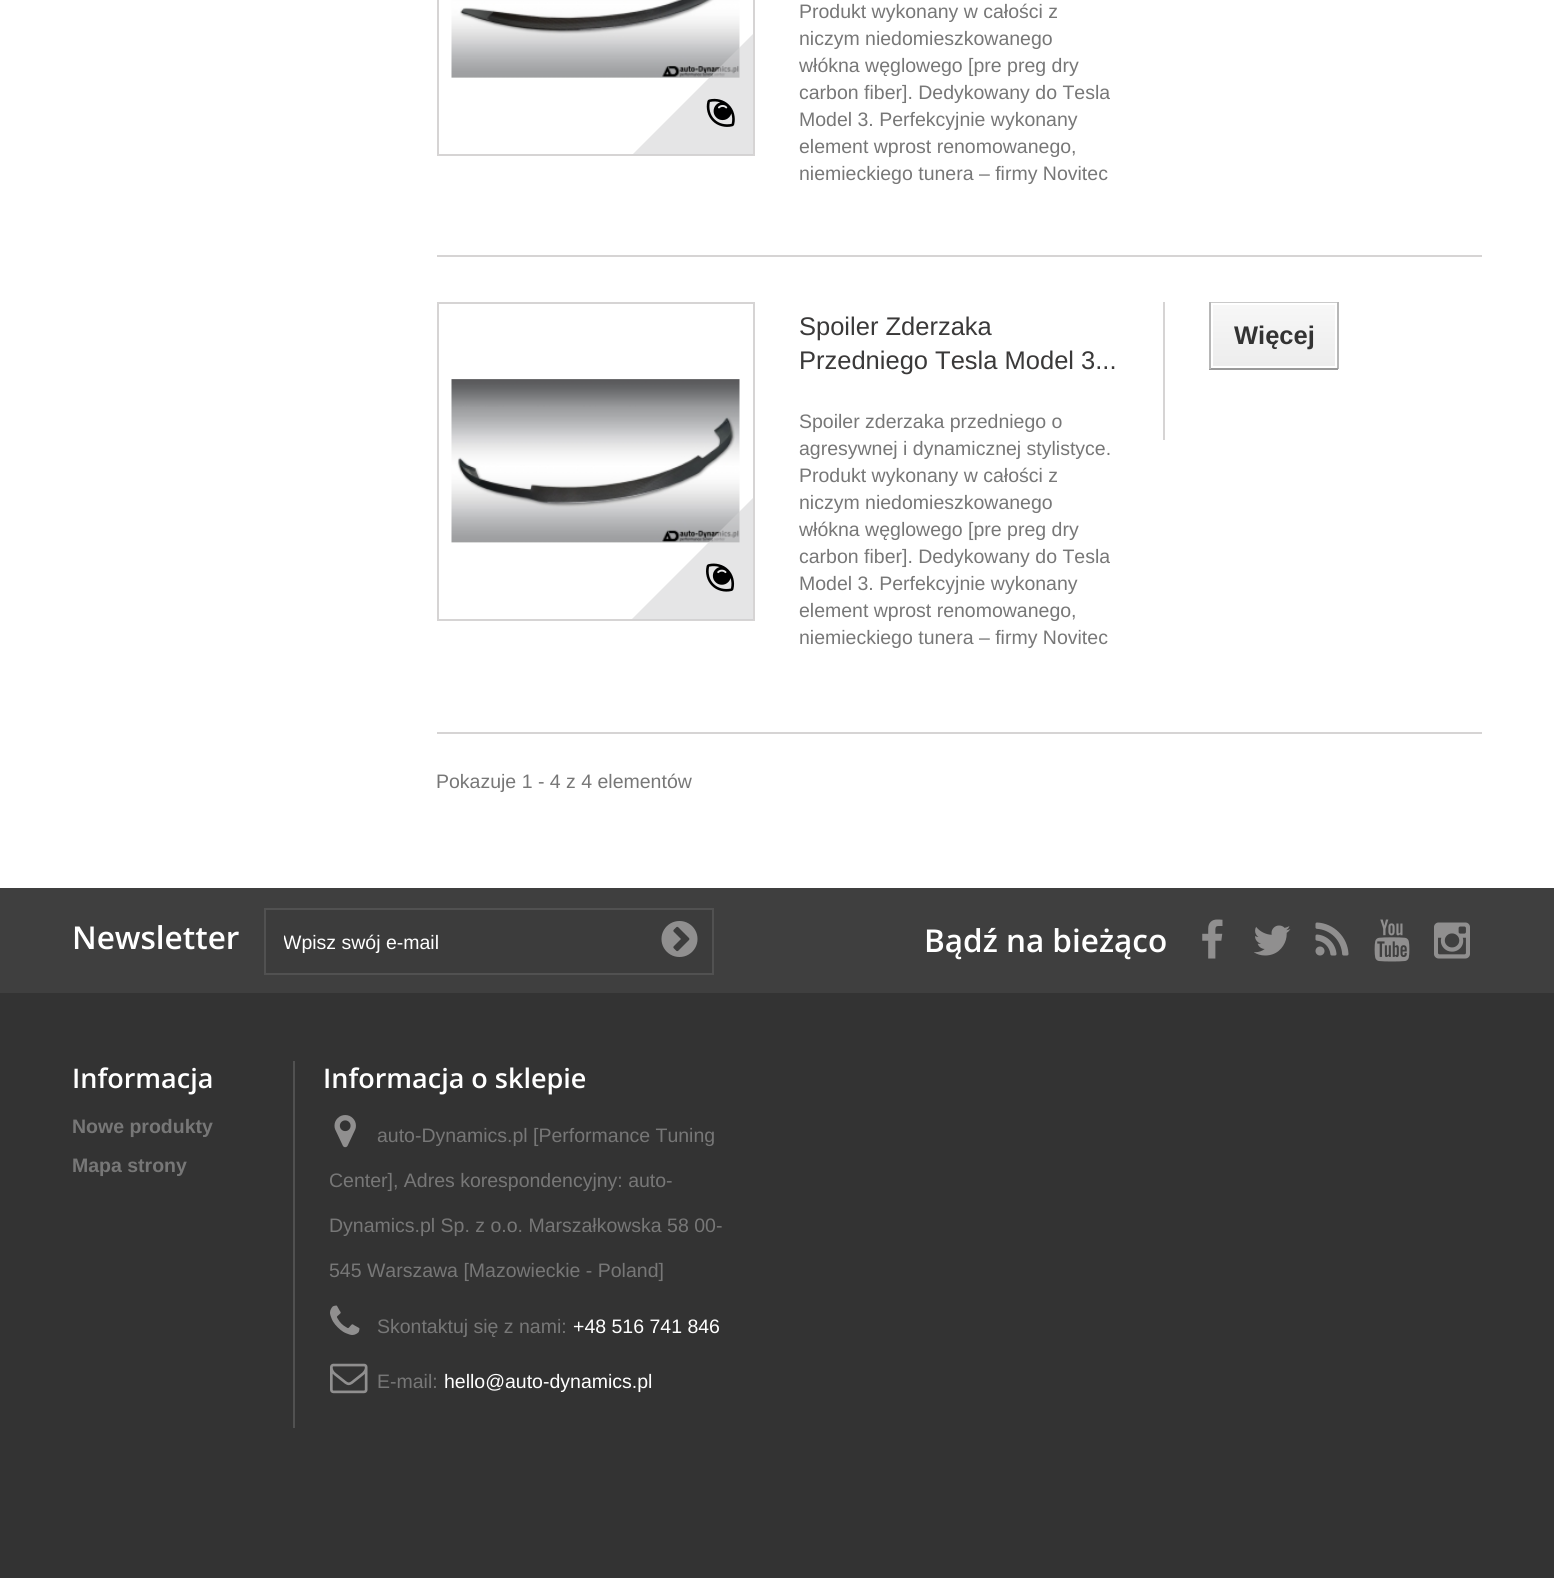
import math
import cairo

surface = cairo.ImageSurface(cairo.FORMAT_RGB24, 1554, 1578)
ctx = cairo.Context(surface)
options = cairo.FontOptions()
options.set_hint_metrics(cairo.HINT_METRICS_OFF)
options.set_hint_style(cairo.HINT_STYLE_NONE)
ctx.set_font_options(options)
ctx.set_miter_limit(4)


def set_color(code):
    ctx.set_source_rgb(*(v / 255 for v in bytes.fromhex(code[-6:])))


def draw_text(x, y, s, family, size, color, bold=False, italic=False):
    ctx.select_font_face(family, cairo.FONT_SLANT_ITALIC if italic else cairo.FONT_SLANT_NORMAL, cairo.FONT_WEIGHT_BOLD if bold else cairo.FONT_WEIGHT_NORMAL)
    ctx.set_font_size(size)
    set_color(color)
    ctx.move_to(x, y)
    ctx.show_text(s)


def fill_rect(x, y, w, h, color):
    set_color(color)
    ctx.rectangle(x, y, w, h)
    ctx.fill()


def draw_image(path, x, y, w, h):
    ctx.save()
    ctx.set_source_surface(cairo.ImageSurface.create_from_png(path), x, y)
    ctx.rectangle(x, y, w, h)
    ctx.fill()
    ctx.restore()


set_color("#ffffff")
ctx.paint()
ctx.rectangle(438, -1, 316, 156)
set_color("#d6d4d4")
ctx.stroke()
draw_image("assets/img1.png", 451, 0, 289, 78)
ctx.save()
ctx.rectangle(431, 0, 322, 155)
ctx.clip()
ctx.set_source_rgba(0.816, 0.816, 0.827, 0.57)
ctx.new_path()
ctx.move_to(761, 26)
ctx.line_to(851, 116)
ctx.line_to(713, 254)
ctx.line_to(623, 164)
ctx.close_path()
ctx.fill()
ctx.restore()
draw_image("assets/img2.png", 706, 98, 29, 29)
draw_text(799, 18, "Produkt wykonany w całości z", "Liberation Sans", 19.5, "#777777")
draw_text(799, 45, "niczym niedomieszkowanego", "Liberation Sans", 19.5, "#777777")
draw_text(799, 72, "włókna węglowego [pre preg dry", "Liberation Sans", 19.5, "#777777")
draw_text(799, 99, "carbon fiber]. Dedykowany do Tesla", "Liberation Sans", 19.5, "#777777")
draw_text(799, 126, "Model 3. Perfekcyjnie wykonany", "Liberation Sans", 19.5, "#777777")
draw_text(799, 153, "element wprost renomowanego,", "Liberation Sans", 19.5, "#777777")
draw_text(799, 180, "niemieckiego tunera – firmy Novitec", "Liberation Sans", 19.5, "#777777")
fill_rect(437, 255, 1045, 2, "#d6d4d4")
ctx.rectangle(438, 303, 316, 317)
ctx.stroke()
draw_image("assets/img3.png", 451, 379, 289, 164)
ctx.save()
ctx.rectangle(431, 387, 322, 233)
ctx.clip()
ctx.set_source_rgba(0.816, 0.816, 0.827, 0.57)
ctx.new_path()
ctx.move_to(761, 490)
ctx.line_to(851, 580)
ctx.line_to(713, 718)
ctx.line_to(623, 628)
ctx.close_path()
ctx.fill()
ctx.restore()
draw_image("assets/img4.png", 706, 563, 29, 29)
draw_text(799, 335, "Spoiler Zderzaka", "Liberation Sans", 25.5, "#3a3939")
draw_text(799, 369, "Przedniego Tesla Model 3...", "Liberation Sans", 25.5, "#3a3939")
draw_text(799, 428, "Spoiler zderzaka przedniego o", "Liberation Sans", 19.5, "#777777")
draw_text(799, 455, "agresywnej i dynamicznej stylistyce.", "Liberation Sans", 19.5, "#777777")
draw_text(799, 482, "Produkt wykonany w całości z", "Liberation Sans", 19.5, "#777777")
draw_text(799, 509, "niczym niedomieszkowanego", "Liberation Sans", 19.5, "#777777")
draw_text(799, 536, "włókna węglowego [pre preg dry", "Liberation Sans", 19.5, "#777777")
draw_text(799, 563, "carbon fiber]. Dedykowany do Tesla", "Liberation Sans", 19.5, "#777777")
draw_text(799, 590, "Model 3. Perfekcyjnie wykonany", "Liberation Sans", 19.5, "#777777")
draw_text(799, 617, "element wprost renomowanego,", "Liberation Sans", 19.5, "#777777")
draw_text(799, 644, "niemieckiego tunera – firmy Novitec", "Liberation Sans", 19.5, "#777777")
fill_rect(1163, 302, 2, 138, "#d6d4d4")
fill_rect(1209, 302, 129, 1, "#cacaca")
fill_rect(1337, 302, 2, 67, "#b7b7b7")
fill_rect(1209, 368, 129, 2, "#9a9a9a")
fill_rect(1209, 302, 2, 67, "#b7b7b7")
gradient = cairo.LinearGradient(1274, 305, 1274, 366)
gradient.add_color_stop_rgba(0, 0.969, 0.969, 0.969, 1)
gradient.add_color_stop_rgba(1, 0.929, 0.929, 0.929, 1)
ctx.set_source(gradient)
ctx.rectangle(1213, 305, 122, 61)
ctx.fill()
draw_text(1234, 344, "Więcej", "Liberation Sans", 25.5, "#333333", bold=True)
fill_rect(437, 732, 1045, 2, "#d6d4d4")
draw_text(436, 788, "Pokazuje 1 - 4 z 4 elementów", "Liberation Sans", 19.5, "#777777")
fill_rect(0, 993, 1554, 585, "#333333")
fill_rect(0, 888, 1554, 105, "#3f3f3f")
draw_text(72, 949, "Newsletter", "Open Sans SemiBold", 31.5, "#ffffff")
set_color("#3c3c3c")
ctx.rectangle(265, 909, 448, 65)
ctx.fill_preserve()
set_color("#515151")
ctx.stroke()
ctx.save()
ctx.rectangle(284, 930, 364, 23)
ctx.clip()
draw_text(283, 949, "Wpisz swój e-mail", "Liberation Sans", 19.5, "#ffffff")
ctx.restore()
draw_image("assets/img5.png", 661, 921, 37, 36)
draw_text(924, 952, "Bądź na bieżąco", "Open Sans SemiBold", 31.5, "#ffffff")
draw_image("assets/img6.png", 1202, 919, 21, 40)
draw_image("assets/img7.png", 1254, 925, 37, 31)
draw_image("assets/img8.png", 1315, 922, 34, 34)
draw_image("assets/img9.png", 1374, 919, 36, 43)
draw_image("assets/img10.png", 1434, 922, 36, 37)
draw_text(72, 1088, "Informacja", "Open Sans SemiBold", 27, "#ffffff")
draw_text(72, 1133, "Nowe produkty", "Liberation Sans", 19.5, "#777777", bold=True)
draw_text(72, 1172, "Mapa strony", "Liberation Sans", 19.5, "#777777", bold=True)
fill_rect(293, 1061, 2, 367, "#515151")
draw_text(323, 1088, "Informacja o sklepie", "Open Sans SemiBold", 27, "#ffffff")
draw_image("assets/img11.png", 334, 1115, 22, 33)
draw_text(377, 1142, "auto-Dynamics.pl [Performance Tuning", "Liberation Sans", 19.5, "#777777")
draw_text(329, 1187, "Center], Adres korespondencyjny: auto-", "Liberation Sans", 19.5, "#777777")
draw_text(329, 1232, "Dynamics.pl Sp. z o.o. Marszałkowska 58 00-", "Liberation Sans", 19.5, "#777777")
draw_text(329, 1277, "545 Warszawa [Mazowieckie - Poland]", "Liberation Sans", 19.5, "#777777")
draw_image("assets/img12.png", 330, 1305, 30, 30)
draw_text(377, 1333, "Skontaktuj się z nami:", "Liberation Sans", 19.5, "#777777")
draw_text(573, 1333, "+48 516 741 846", "Liberation Sans", 19.5, "#ffffff")
draw_image("assets/img13.png", 330, 1363, 38, 31)
draw_text(377, 1388, "E-mail:", "Liberation Sans", 19.5, "#777777")
draw_text(444, 1388, "hello@auto-dynamics.pl", "Liberation Sans", 19.5, "#ffffff")
surface.write_to_png("output.png")
